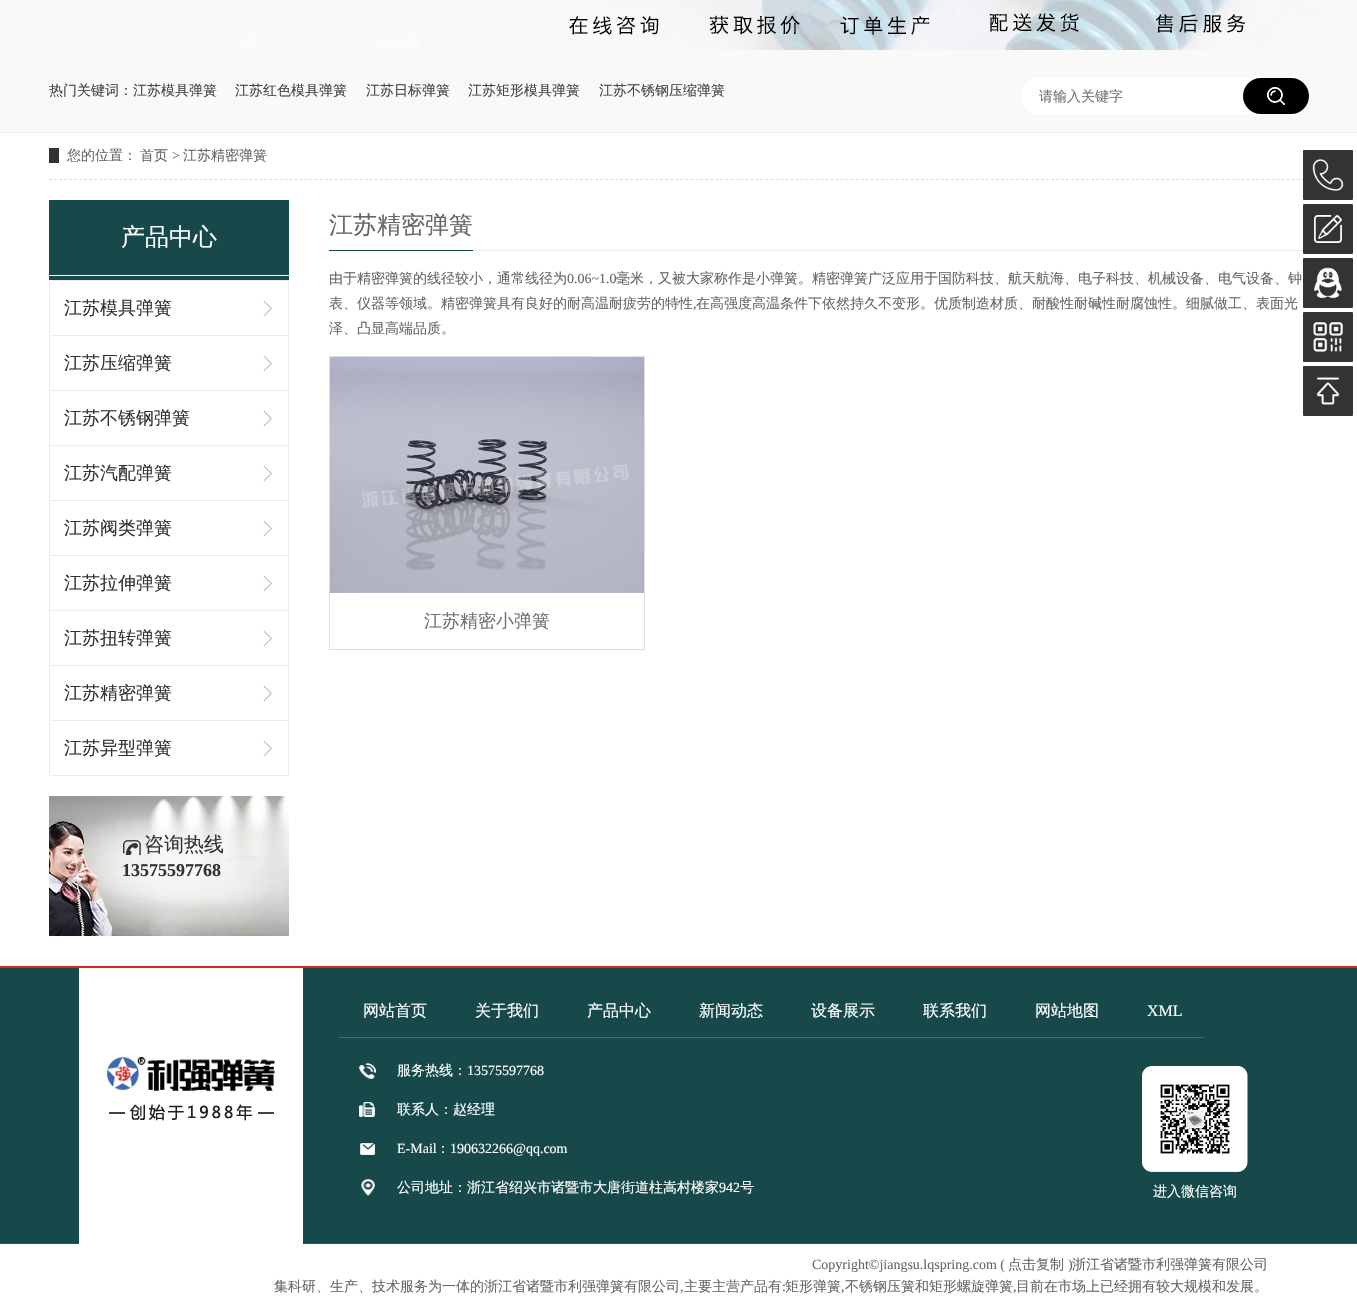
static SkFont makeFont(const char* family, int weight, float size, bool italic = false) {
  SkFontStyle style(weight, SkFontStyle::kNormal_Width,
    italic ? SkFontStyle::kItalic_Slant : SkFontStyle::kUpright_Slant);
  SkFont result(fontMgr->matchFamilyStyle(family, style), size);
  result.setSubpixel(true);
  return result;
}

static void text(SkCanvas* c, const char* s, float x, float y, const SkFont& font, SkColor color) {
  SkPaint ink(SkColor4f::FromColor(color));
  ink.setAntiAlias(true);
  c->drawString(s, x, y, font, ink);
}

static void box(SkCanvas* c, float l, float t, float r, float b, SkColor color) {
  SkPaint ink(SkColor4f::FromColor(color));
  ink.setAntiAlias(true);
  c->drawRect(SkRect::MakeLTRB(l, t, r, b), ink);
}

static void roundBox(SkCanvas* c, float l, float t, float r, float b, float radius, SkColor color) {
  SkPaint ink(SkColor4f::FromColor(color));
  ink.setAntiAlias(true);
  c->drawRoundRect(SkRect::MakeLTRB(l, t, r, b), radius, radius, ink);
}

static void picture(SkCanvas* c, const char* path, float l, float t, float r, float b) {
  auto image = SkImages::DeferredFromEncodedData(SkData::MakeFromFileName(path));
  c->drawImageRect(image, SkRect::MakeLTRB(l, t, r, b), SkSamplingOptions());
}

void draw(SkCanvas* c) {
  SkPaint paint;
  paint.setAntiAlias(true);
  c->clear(0xffffffff);
  picture(c, "img_01.png", 0, 0, 1357, 50);
  box(c, 0, 50, 1357, 132, 0xfff9f9f9);
  box(c, 0, 132, 1357, 133, 0xffeeeeee);
  SkFont face1 = makeFont("WenQuanYi Zen Hei", 500, 14);
  text(c, "热门关键词：江苏模具弹簧", 49, 95, face1, 0xff444444);
  text(c, "江苏红色模具弹簧", 235, 95, face1, 0xff444444);
  text(c, "江苏日标弹簧", 366, 95, face1, 0xff444444);
  text(c, "江苏矩形模具弹簧", 468, 95, face1, 0xff444444);
  text(c, "江苏不锈钢压缩弹簧", 599, 95, face1, 0xff444444);
  roundBox(c, 1021, 78, 1309, 114, 18, 0xffffffff);
  text(c, "请输入关键字", 1039, 101, face1, 0xff727272);
  roundBox(c, 1243, 78, 1309, 114, 18, 0xff000000);
  picture(c, "img_02.png", 1267, 87, 1285, 105);
  paint.setStyle(SkPaint::kStroke_Style);
  paint.setStrokeWidth(1);
  paint.setColor(0xffdcdcdc);
  paint.setPathEffect(SkDashPathEffect::Make({{3, 2.01f}}, 0));
  c->drawPath(SkPathBuilder().moveTo(49, 179.5f).lineTo(1309, 179.5f).detach(), paint);
  paint.setPathEffect(nullptr);
  text(c, "您的位置：", 67, 160, face1, 0xff666666);
  box(c, 49, 148, 59, 163, 0xff333333);
  text(c, "首页", 140, 160, face1, 0xff666666);
  SkFont face2 = makeFont("Liberation Serif", 400, 14);
  text(c, ">", 172, 160, face2, 0xff666666);
  text(c, "江苏精密弹簧", 183, 160, face1, 0xff666666);
  box(c, 49, 200, 289, 280, 0xff17494a);
  box(c, 49, 275, 289, 276, 0xffffffff);
  SkFont face3 = makeFont("WenQuanYi Zen Hei", 500, 24);
  text(c, "产品中心", 121, 245, face3, 0xffffffff);
  box(c, 49, 280, 289, 281, 0xffebebeb);
  box(c, 288, 280, 289, 776, 0xffebebeb);
  box(c, 49, 280, 50, 776, 0xffebebeb);
  box(c, 50, 335, 288, 336, 0xffebebeb);
  SkFont face4 = makeFont("WenQuanYi Zen Hei", 500, 18);
  text(c, "江苏模具弹簧", 64, 314, face4, 0xff333333);
  paint.setStyle(SkPaint::kFill_Style);
  paint.setColor(0xffbdbdbd);
  c->drawPath(SkPathBuilder().moveTo(264, 300.5f).lineTo(272, 308.5f).lineTo(271, 309).lineTo(263.5f, 301.5f).close().detach(), paint);
  c->drawPath(SkPathBuilder().moveTo(271, 308).lineTo(272, 308.5f).lineTo(264, 316.5f).lineTo(263.5f, 315.5f).close().detach(), paint);
  box(c, 50, 390, 288, 391, 0xffebebeb);
  text(c, "江苏压缩弹簧", 64, 369, face4, 0xff333333);
  c->drawPath(SkPathBuilder().moveTo(264, 355.5f).lineTo(272, 363.5f).lineTo(271, 364).lineTo(263.5f, 356.5f).close().detach(), paint);
  c->drawPath(SkPathBuilder().moveTo(271, 363).lineTo(272, 363.5f).lineTo(264, 371.5f).lineTo(263.5f, 370.5f).close().detach(), paint);
  box(c, 50, 445, 288, 446, 0xffebebeb);
  text(c, "江苏不锈钢弹簧", 64, 424, face4, 0xff333333);
  c->drawPath(SkPathBuilder().moveTo(264, 410.5f).lineTo(272, 418.5f).lineTo(271, 419).lineTo(263.5f, 411.5f).close().detach(), paint);
  c->drawPath(SkPathBuilder().moveTo(271, 418).lineTo(272, 418.5f).lineTo(264, 426.5f).lineTo(263.5f, 425.5f).close().detach(), paint);
  box(c, 50, 500, 288, 501, 0xffebebeb);
  text(c, "江苏汽配弹簧", 64, 479, face4, 0xff333333);
  c->drawPath(SkPathBuilder().moveTo(264, 465.5f).lineTo(272, 473.5f).lineTo(271, 474).lineTo(263.5f, 466.5f).close().detach(), paint);
  c->drawPath(SkPathBuilder().moveTo(271, 473).lineTo(272, 473.5f).lineTo(264, 481.5f).lineTo(263.5f, 480.5f).close().detach(), paint);
  box(c, 50, 555, 288, 556, 0xffebebeb);
  text(c, "江苏阀类弹簧", 64, 534, face4, 0xff333333);
  c->drawPath(SkPathBuilder().moveTo(264, 520.5f).lineTo(272, 528.5f).lineTo(271, 529).lineTo(263.5f, 521.5f).close().detach(), paint);
  c->drawPath(SkPathBuilder().moveTo(271, 528).lineTo(272, 528.5f).lineTo(264, 536.5f).lineTo(263.5f, 535.5f).close().detach(), paint);
  box(c, 50, 610, 288, 611, 0xffebebeb);
  text(c, "江苏拉伸弹簧", 64, 589, face4, 0xff333333);
  c->drawPath(SkPathBuilder().moveTo(264, 575.5f).lineTo(272, 583.5f).lineTo(271, 584).lineTo(263.5f, 576.5f).close().detach(), paint);
  c->drawPath(SkPathBuilder().moveTo(271, 583).lineTo(272, 583.5f).lineTo(264, 591.5f).lineTo(263.5f, 590.5f).close().detach(), paint);
  box(c, 50, 665, 288, 666, 0xffebebeb);
  text(c, "江苏扭转弹簧", 64, 644, face4, 0xff333333);
  c->drawPath(SkPathBuilder().moveTo(264, 630.5f).lineTo(272, 638.5f).lineTo(271, 639).lineTo(263.5f, 631.5f).close().detach(), paint);
  c->drawPath(SkPathBuilder().moveTo(271, 638).lineTo(272, 638.5f).lineTo(264, 646.5f).lineTo(263.5f, 645.5f).close().detach(), paint);
  box(c, 50, 720, 288, 721, 0xffebebeb);
  text(c, "江苏精密弹簧", 64, 699, face4, 0xff333333);
  c->drawPath(SkPathBuilder().moveTo(264, 685.5f).lineTo(272, 693.5f).lineTo(271, 694).lineTo(263.5f, 686.5f).close().detach(), paint);
  c->drawPath(SkPathBuilder().moveTo(271, 693).lineTo(272, 693.5f).lineTo(264, 701.5f).lineTo(263.5f, 700.5f).close().detach(), paint);
  box(c, 50, 775, 288, 776, 0xffebebeb);
  text(c, "江苏异型弹簧", 64, 754, face4, 0xff333333);
  c->drawPath(SkPathBuilder().moveTo(264, 740.5f).lineTo(272, 748.5f).lineTo(271, 749).lineTo(263.5f, 741.5f).close().detach(), paint);
  c->drawPath(SkPathBuilder().moveTo(271, 748).lineTo(272, 748.5f).lineTo(264, 756.5f).lineTo(263.5f, 755.5f).close().detach(), paint);
  picture(c, "img_03.png", 49, 796, 289, 936);
  picture(c, "img_04.png", 123, 840, 141, 855);
  SkFont face5 = makeFont("WenQuanYi Zen Hei", 500, 20);
  text(c, "咨询热线", 144, 851, face5, 0xff333333);
  SkFont face6 = makeFont("Liberation Serif", 700, 18);
  text(c, "13575597768", 122, 876, face6, 0xff333333);
  box(c, 473, 250, 1309, 251, 0xffebebeb);
  box(c, 329, 250, 473, 251, 0xff17494a);
  text(c, "江苏精密弹簧", 329, 233, face3, 0xff666666);
  text(c, "由于精密弹簧的线径较小，通常线径为", 329, 283, face1, 0xff666666);
  text(c, "0.06~1.0", 567, 283, face2, 0xff666666);
  text(c, "毫米，又被大家称作是小弹簧。精密弹簧广泛应用于国防科技、航天航海、电子科技、机械设备、电气设备、钟", 616, 283, face1, 0xff666666);
  text(c, "表、仪器等领域。精密弹簧具有良好的耐高温耐疲劳的特性", 329, 308, face1, 0xff666666);
  text(c, ",", 693, 308, face2, 0xff666666);
  text(c, "在高强度高温条件下依然持久不变形。优质制造材质、耐酸性耐碱性耐腐蚀性。细腻做工、表面光", 696, 308, face1, 0xff666666);
  text(c, "泽、凸显高端品质。", 329, 333, face1, 0xff666666);
  paint.setStyle(SkPaint::kStroke_Style);
  paint.setColor(0xffdedede);
  c->drawRect(SkRect::MakeLTRB(329.5f, 356.5f, 644.5f, 649.5f), paint);
  picture(c, "img_05.png", 330, 357, 644, 593);
  text(c, "江苏精密小弹簧", 424, 627, face4, 0xff727272);
  roundBox(c, 1303, 150, 1353, 200, 1, 0xff333333);
  picture(c, "img_06.png", 1312, 159, 1344, 191);
  roundBox(c, 1303, 204, 1353, 254, 1, 0xff333333);
  picture(c, "img_07.png", 1314, 215, 1342, 243);
  roundBox(c, 1303, 258, 1353, 308, 1, 0xff333333);
  picture(c, "img_08.png", 1314, 267, 1342, 299);
  roundBox(c, 1303, 312, 1353, 362, 1, 0xff333333);
  picture(c, "img_09.png", 1313, 322, 1343, 352);
  roundBox(c, 1303, 366, 1353, 416, 1, 0xff333333);
  picture(c, "img_10.png", 1316, 377, 1340, 405);
  picture(c, "img_11.png", 0, 966, 1357, 1244);
  box(c, 79, 968, 303, 1244, 0xffffffff);
  picture(c, "img_12.png", 107, 1057, 275, 1121);
  SkFont face7 = makeFont("WenQuanYi Zen Hei", 500, 16);
  text(c, "网站首页", 363, 1016, face7, 0xffffffff);
  text(c, "关于我们", 475, 1016, face7, 0xffffffff);
  text(c, "产品中心", 587, 1016, face7, 0xffffffff);
  text(c, "新闻动态", 699, 1016, face7, 0xffffffff);
  text(c, "设备展示", 811, 1016, face7, 0xffffffff);
  text(c, "联系我们", 923, 1016, face7, 0xffffffff);
  text(c, "网站地图", 1035, 1016, face7, 0xffffffff);
  SkFont face8 = makeFont("Liberation Serif", 400, 16);
  text(c, "XML", 1147, 1016, face8, 0xffffffff);
  box(c, 339, 1037, 1204, 1038, 0xff456d6e);
  picture(c, "img_13.png", 359, 1063, 376, 1079);
  text(c, "服务热线：", 397, 1075, face1, 0xffffffff);
  text(c, "13575597768", 467, 1075, face2, 0xffffffff);
  picture(c, "img_14.png", 359, 1102, 375, 1117);
  text(c, "联系人：赵经理", 397, 1114, face1, 0xffffffff);
  picture(c, "img_15.png", 360, 1143, 375, 1155);
  text(c, "E-Mail", 397, 1153, face2, 0xffffffff);
  text(c, "：", 436, 1153, face1, 0xffffffff);
  text(c, "190632266@qq.com", 450, 1153, face2, 0xffffffff);
  picture(c, "img_16.png", 361, 1179, 375, 1196);
  text(c, "公司地址：浙江省绍兴市诸暨市大唐街道柱嵩村楼家", 397, 1192, face1, 0xffffffff);
  text(c, "942", 719, 1192, face2, 0xffffffff);
  text(c, "号", 740, 1192, face1, 0xffffffff);
  picture(c, "img_17.png", 1142, 1066, 1248, 1172);
  picture(c, "img_18.png", 1160, 1084, 1230, 1154);
  text(c, "进入微信咨询", 1153, 1196, face1, 0xffffffff);
  text(c, "Copyright©jiangsu.lqspring.com (", 812, 1269, face2, 0xff666666);
  text(c, "点击复制", 1008, 1269, face1, 0xff666666);
  text(c, ")", 1068, 1269, face2, 0xff666666);
  text(c, "浙江省诸暨市利强弹簧有限公司", 1072, 1269, face1, 0xff666666);
  text(c, "集科研、生产、技术服务为一体的浙江省诸暨市利强弹簧有限公司", 274, 1291, face1, 0xff666666);
  text(c, ",", 680, 1291, face2, 0xff666666);
  text(c, "主要主营产品有", 684, 1291, face1, 0xff666666);
  text(c, ":", 782, 1291, face2, 0xff666666);
  text(c, "矩形弹簧", 785, 1291, face1, 0xff666666);
  text(c, ",", 841, 1291, face2, 0xff666666);
  text(c, "不锈钢压簧和矩形螺旋弹簧", 845, 1291, face1, 0xff666666);
  text(c, ",", 1013, 1291, face2, 0xff666666);
  text(c, "目前在市场上已经拥有较大规模和发展。", 1016, 1291, face1, 0xff666666);
}
